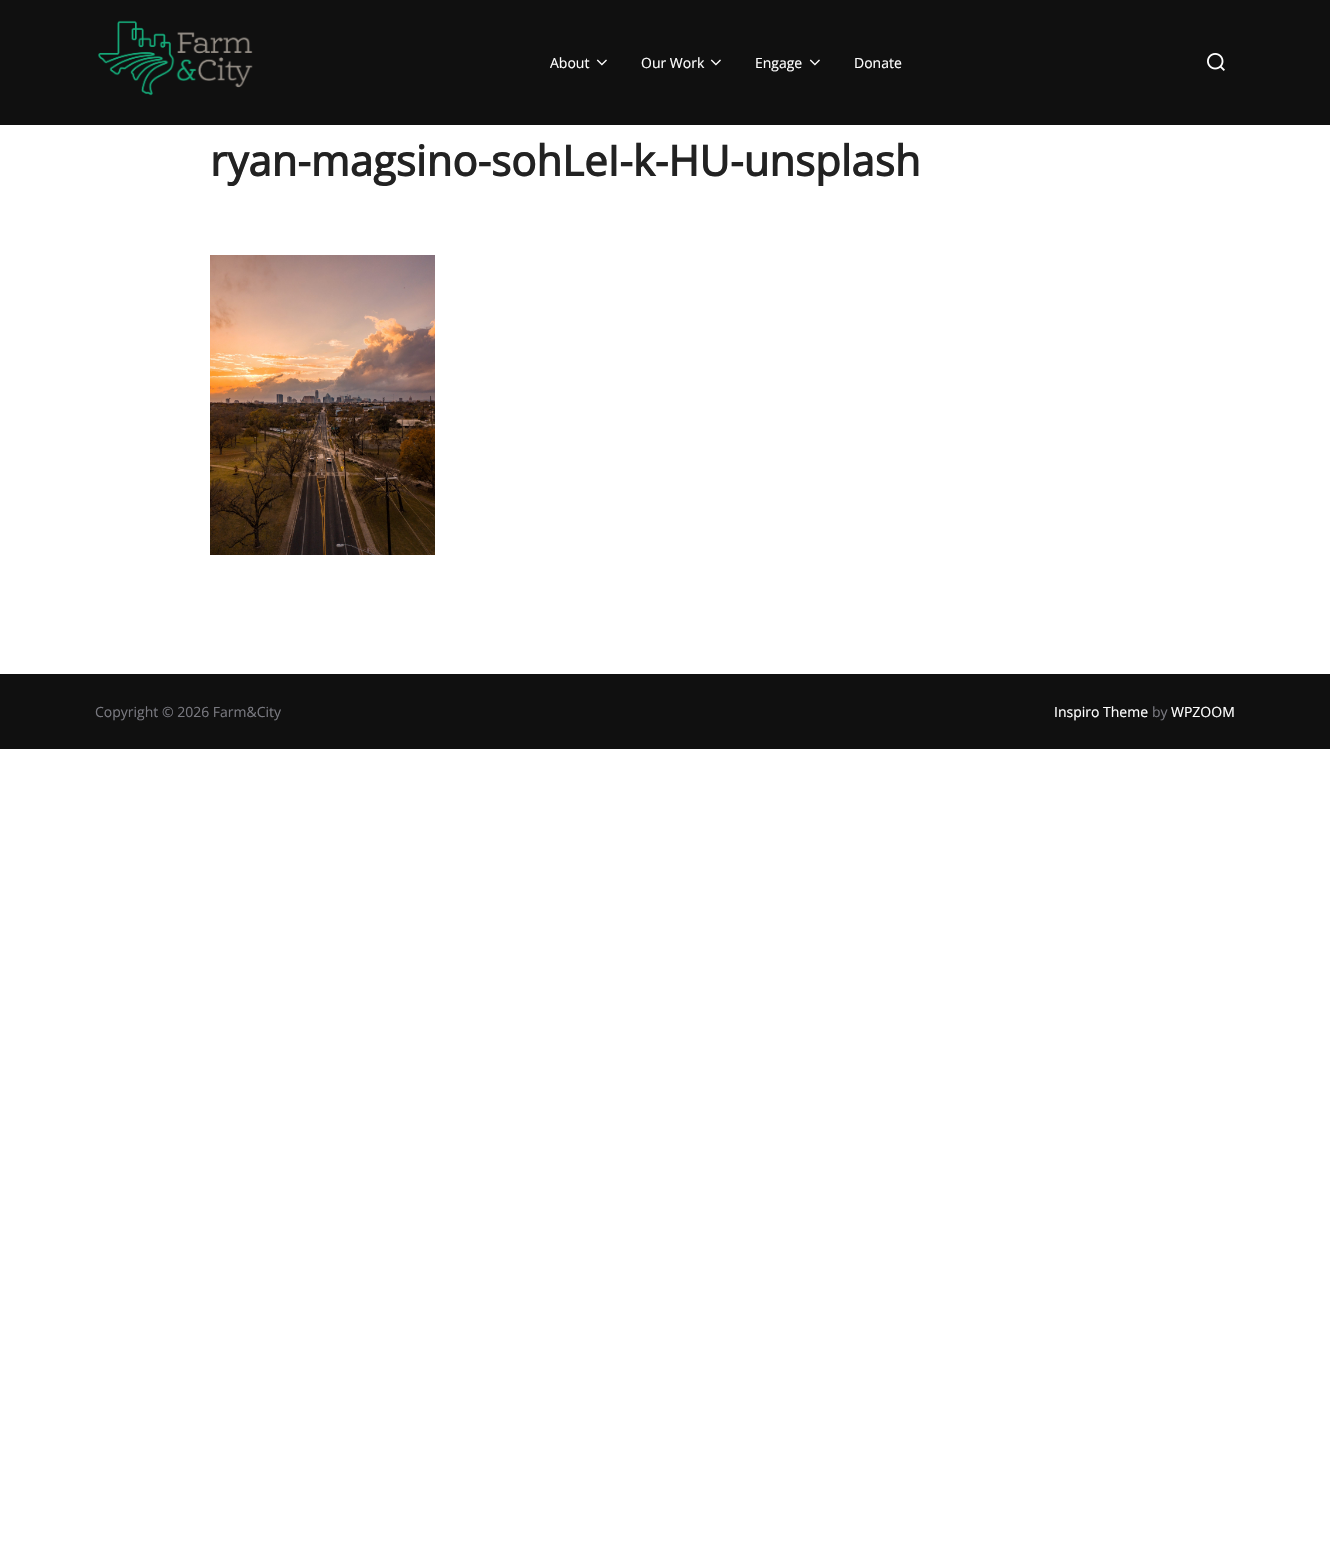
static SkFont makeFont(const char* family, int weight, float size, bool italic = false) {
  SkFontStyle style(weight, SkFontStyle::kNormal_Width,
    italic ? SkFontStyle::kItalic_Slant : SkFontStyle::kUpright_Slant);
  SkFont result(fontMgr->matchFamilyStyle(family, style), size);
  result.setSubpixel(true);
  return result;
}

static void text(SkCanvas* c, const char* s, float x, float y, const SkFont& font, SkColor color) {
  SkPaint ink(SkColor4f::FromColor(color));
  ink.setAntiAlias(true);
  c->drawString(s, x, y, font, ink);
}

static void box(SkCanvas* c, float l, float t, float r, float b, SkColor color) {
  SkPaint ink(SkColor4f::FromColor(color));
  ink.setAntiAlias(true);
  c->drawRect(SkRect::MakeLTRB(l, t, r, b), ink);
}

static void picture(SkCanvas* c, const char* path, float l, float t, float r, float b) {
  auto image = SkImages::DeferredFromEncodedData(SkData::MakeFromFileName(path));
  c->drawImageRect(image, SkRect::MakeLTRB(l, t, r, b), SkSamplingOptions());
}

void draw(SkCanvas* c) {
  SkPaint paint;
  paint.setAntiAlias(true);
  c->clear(0xffffffff);
  box(c, 0, 0, 1330, 125, 0xff101010);
  picture(c, "img_01.png", 98, 20, 253, 96);
  SkFont face1 = makeFont("Open Sans", 400, 14);
  text(c, "About", 550, 68, face1, 0xffffffff);
  picture(c, "img_02.png", 596, 59, 607, 66);
  text(c, "Our Work", 641, 68, face1, 0xffffffff);
  picture(c, "img_02.png", 710, 59, 721, 66);
  text(c, "Engage", 755, 68, face1, 0xffffffff);
  picture(c, "img_02.png", 809, 59, 820, 66);
  text(c, "Donate", 854, 68, face1, 0xffffffff);
  picture(c, "img_03.png", 1207, 53, 1225, 71);
  SkFont face2 = makeFont("Open Sans", 700, 42);
  text(c, "ryan-magsino-sohLeI-k-HU-unsplash", 210, 176, face2, 0xff222222);
  picture(c, "img_04.png", 210, 255, 435, 555);
  box(c, 0, 674, 1330, 749, 0xff101010);
  text(c, "Copyright © 2026 Farm&City", 95, 717, face1, 0xff78787f);
  text(c, "Inspiro Theme", 1054, 717, face1, 0xffffffff);
  text(c, "by", 1152, 717, face1, 0xff78787f);
  text(c, "WPZOOM", 1171, 717, face1, 0xffffffff);
}
